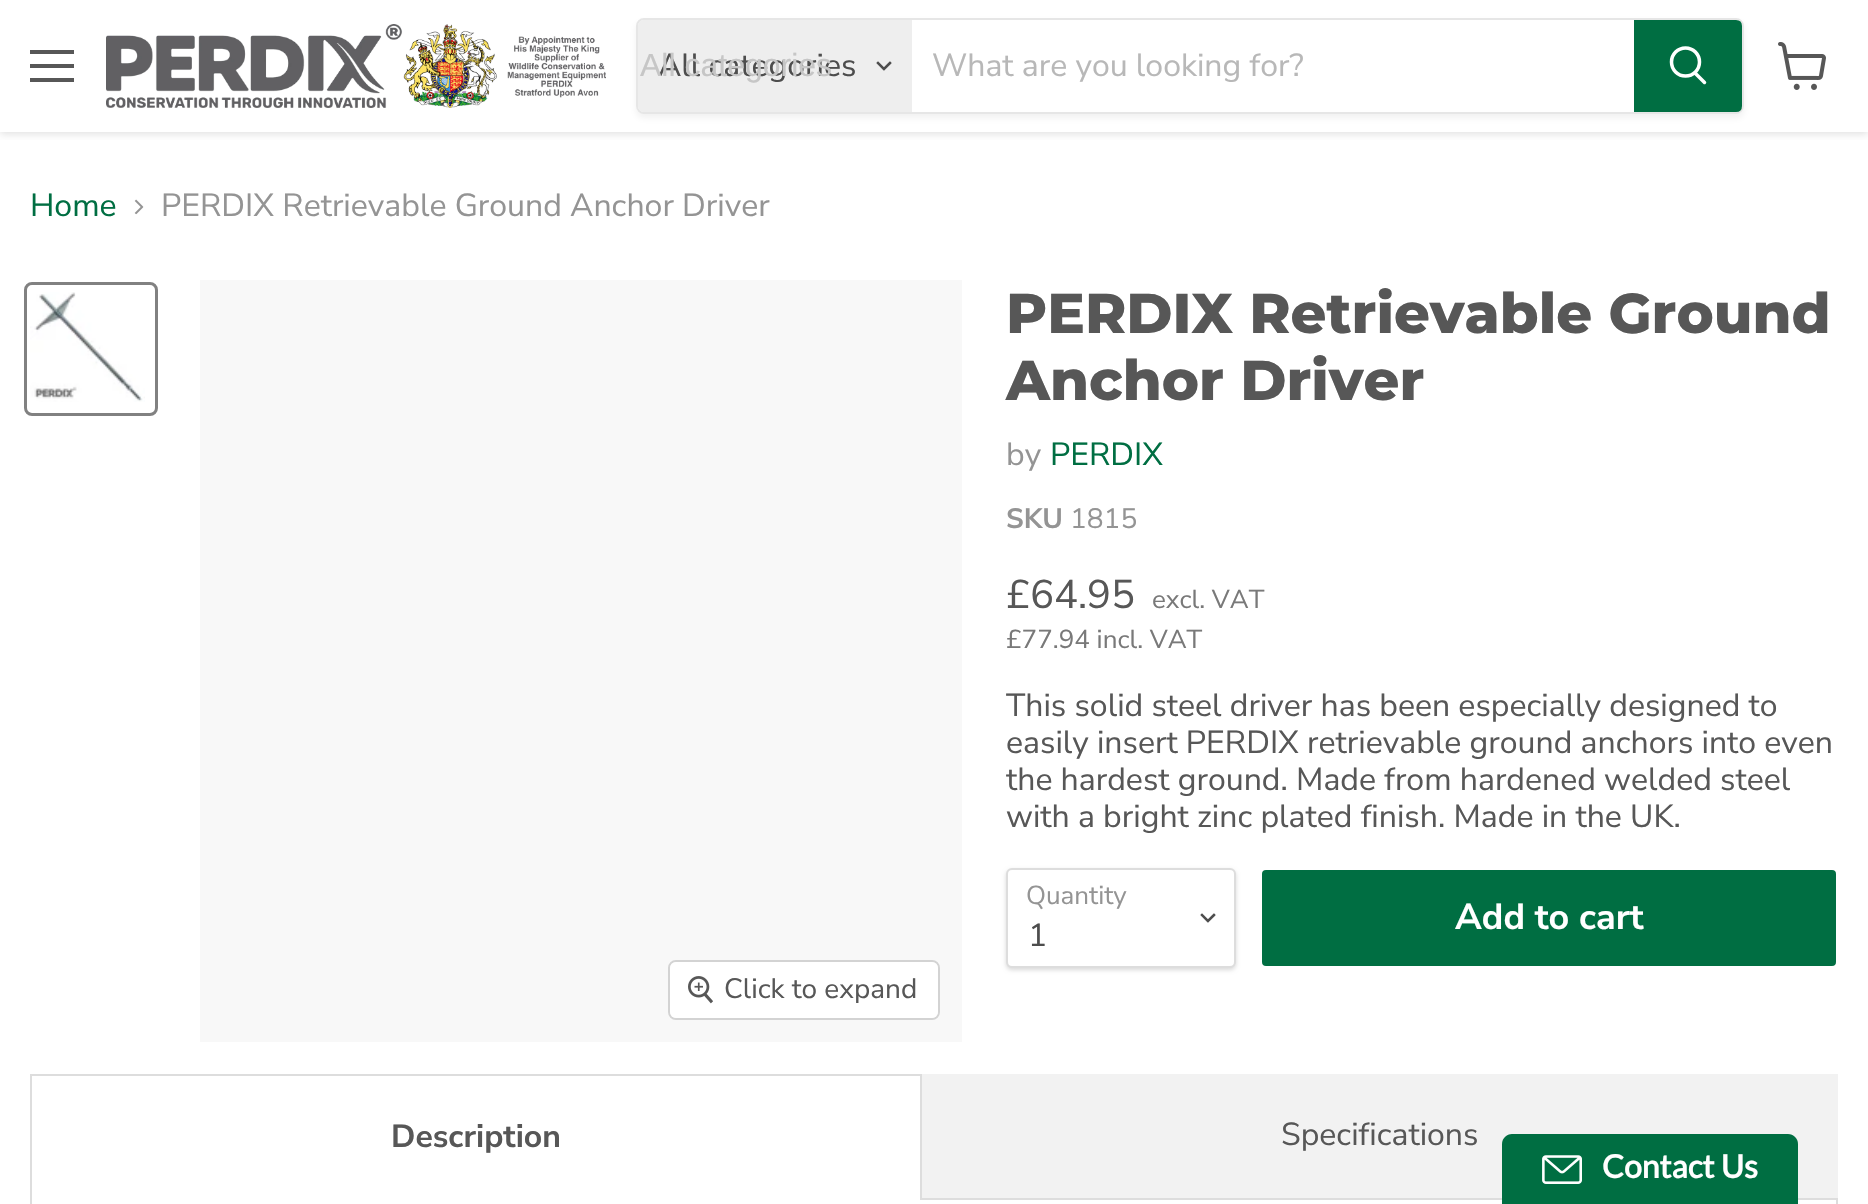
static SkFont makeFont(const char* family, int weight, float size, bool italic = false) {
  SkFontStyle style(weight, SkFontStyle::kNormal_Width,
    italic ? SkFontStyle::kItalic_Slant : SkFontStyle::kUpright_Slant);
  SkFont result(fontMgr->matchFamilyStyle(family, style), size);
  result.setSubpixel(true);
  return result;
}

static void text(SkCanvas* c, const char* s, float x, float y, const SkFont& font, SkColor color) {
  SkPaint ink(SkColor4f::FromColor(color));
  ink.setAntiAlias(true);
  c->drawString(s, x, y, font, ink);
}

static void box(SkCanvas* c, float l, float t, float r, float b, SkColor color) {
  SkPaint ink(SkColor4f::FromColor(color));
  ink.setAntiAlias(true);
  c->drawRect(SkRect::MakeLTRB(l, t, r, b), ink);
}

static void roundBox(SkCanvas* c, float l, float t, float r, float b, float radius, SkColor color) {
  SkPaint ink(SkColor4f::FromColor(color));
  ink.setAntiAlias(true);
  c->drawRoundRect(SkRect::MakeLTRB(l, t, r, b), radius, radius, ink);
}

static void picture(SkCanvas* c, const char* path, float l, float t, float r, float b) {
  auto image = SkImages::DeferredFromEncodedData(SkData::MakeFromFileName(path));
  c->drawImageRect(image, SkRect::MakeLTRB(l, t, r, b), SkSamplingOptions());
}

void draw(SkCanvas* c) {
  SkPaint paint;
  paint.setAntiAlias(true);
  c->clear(0xffffffff);
  c->save();
  c->clipRect(SkRect::MakeLTRB(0, 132, 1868, 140));
  paint.setColor(0x40808080);
  paint.setMaskFilter(SkMaskFilter::MakeBlur(kNormal_SkBlurStyle, 4));
  c->drawRect(SkRect::MakeLTRB(0, 2, 1868, 134), paint);
  paint.setMaskFilter(nullptr);
  c->restore();
  box(c, 30, 50, 74, 54, 0xff575757);
  box(c, 30, 64, 74, 68, 0xff575757);
  box(c, 30, 78, 74, 82, 0xff575757);
  picture(c, "img_01.png", 106, 24, 606, 108);
  c->save();
  c->clipPath(SkPathBuilder(SkPathFillType::kEvenOdd).moveTo(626, 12).lineTo(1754, 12).lineTo(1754, 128).lineTo(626, 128).close().moveTo(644, 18).lineTo(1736, 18).cubicTo(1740.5f, 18, 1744, 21.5f, 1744, 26).lineTo(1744, 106).cubicTo(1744, 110.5f, 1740.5f, 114, 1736, 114).lineTo(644, 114).cubicTo(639.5f, 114, 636, 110.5f, 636, 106).lineTo(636, 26).cubicTo(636, 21.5f, 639.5f, 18, 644, 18).close().detach(), true);
  paint.setColor(0x1c808080);
  paint.setMaskFilter(SkMaskFilter::MakeBlur(kNormal_SkBlurStyle, 3));
  c->drawRoundRect(SkRect::MakeLTRB(636, 22, 1744, 118), 8, 8, paint);
  paint.setMaskFilter(nullptr);
  c->restore();
  paint.setStyle(SkPaint::kStroke_Style);
  paint.setStrokeWidth(2);
  paint.setColor(0x33808080);
  c->drawRoundRect(SkRect::MakeLTRB(637, 19, 1743, 113), 7, 7, paint);
  paint.setStyle(SkPaint::kFill_Style);
  paint.setColor(0xffeeeeee);
  c->drawPath(SkPathBuilder().moveTo(644, 20).lineTo(912, 20).lineTo(912, 112).lineTo(644, 112).cubicTo(640.5f, 112, 638, 109.5f, 638, 106).lineTo(638, 26).cubicTo(638, 22.5f, 640.5f, 20, 644, 20).close().detach(), paint);
  SkFont face1 = makeFont("Nunito Sans", 200, 32);
  text(c, "All categories", 658, 76, face1, 0xff4d4d4d);
  SkFont face2 = makeFont("Liberation Sans", 400, 32);
  text(c, "All categories", 640, 76, face2, 0xffc6c6c6);
  paint.setStyle(SkPaint::kStroke_Style);
  paint.setStrokeWidth(2.5f);
  paint.setStrokeCap(SkPaint::kSquare_Cap);
  paint.setColor(0xff4d4d4d);
  c->drawPath(SkPathBuilder().moveTo(884, 69).lineTo(890, 63).moveTo(884, 69).lineTo(878, 63).detach(), paint);
  text(c, "What are you looking for?", 932, 76, face1, 0xffb8b8b8);
  paint.setStyle(SkPaint::kFill_Style);
  paint.setColor(0xff006e42);
  c->drawPath(SkPathBuilder().moveTo(1635, 21).lineTo(1736, 21).cubicTo(1739, 21, 1741, 23, 1741, 26).lineTo(1741, 106).cubicTo(1741, 109, 1739, 111, 1736, 111).lineTo(1635, 111).close().detach(), paint);
  paint.setStyle(SkPaint::kStroke_Style);
  paint.setStrokeWidth(2);
  paint.setStrokeCap(SkPaint::kButt_Cap);
  c->drawPath(SkPathBuilder().moveTo(1635, 21).lineTo(1736, 21).cubicTo(1739, 21, 1741, 23, 1741, 26).lineTo(1741, 106).cubicTo(1741, 109, 1739, 111, 1736, 111).lineTo(1635, 111).close().detach(), paint);
  paint.setStrokeWidth(3.5f);
  paint.setStrokeCap(SkPaint::kRound_Cap);
  paint.setColor(0xffffffff);
  c->drawPath(SkPathBuilder().moveTo(1704.5f, 82.5f).lineTo(1695, 73).detach(), paint);
  paint.setStrokeCap(SkPaint::kButt_Cap);
  c->drawCircle(1685.5f, 62, 14, paint);
  picture(c, "img_02.png", 1778, 42, 1826, 90);
  text(c, "Home", 30, 216, face1, 0xff006e42);
  picture(c, "img_03.png", 134, 199, 144, 215);
  text(c, "PERDIX Retrievable Ground Anchor Driver", 161, 216, face1, 0xff949494);
  SkFont face3 = makeFont("Montserrat", 800, 56);
  text(c, "PERDIX Retrievable Ground", 1006, 333, face3, 0xff575757);
  text(c, "Anchor Driver", 1006, 400, face3, 0xff575757);
  text(c, "by", 1006, 465, face1, 0xff949494);
  text(c, "PERDIX", 1050, 465, face1, 0xff006e42);
  SkFont face4 = makeFont("Nunito Sans", 700, 28);
  text(c, "SKU", 1006, 528, face4, 0xff949494);
  SkFont face5 = makeFont("Nunito Sans", 200, 28);
  text(c, "1815", 1070, 528, face5, 0xff949494);
  SkFont face6 = makeFont("Nunito Sans", 200, 40);
  text(c, "£64.95", 1006, 608, face6, 0xff575757);
  SkFont face7 = makeFont("Nunito Sans", 200, 26);
  text(c, "excl. VAT", 1152, 608, face7, 0xff797979);
  text(c, "£77.94 incl. VAT", 1006, 648, face7, 0xff797979);
  text(c, "This solid steel driver has been especially designed to", 1006, 716, face1, 0xff575757);
  text(c, "easily insert PERDIX retrievable ground anchors into even", 1006, 753, face1, 0xff575757);
  text(c, "the hardest ground. Made from hardened welded steel", 1006, 790, face1, 0xff575757);
  text(c, "with a bright zinc plated finish. Made in the UK.", 1006, 827, face1, 0xff575757);
  paint.setStyle(SkPaint::kFill_Style);
  paint.setColor(0x26000000);
  paint.setMaskFilter(SkMaskFilter::MakeBlur(kNormal_SkBlurStyle, 2));
  c->drawRoundRect(SkRect::MakeLTRB(1006, 870, 1236, 970), 6, 6, paint);
  paint.setMaskFilter(nullptr);
  paint.setColor(0xffffffff);
  c->drawRoundRect(SkRect::MakeLTRB(1007, 869, 1235, 967), 5, 5, paint);
  paint.setStyle(SkPaint::kStroke_Style);
  paint.setStrokeWidth(2);
  paint.setColor(0xffdddddd);
  c->drawRoundRect(SkRect::MakeLTRB(1007, 869, 1235, 967), 5, 5, paint);
  text(c, "Quantity", 1026, 904, face7, 0xff949494);
  paint.setStrokeWidth(2.5f);
  paint.setStrokeCap(SkPaint::kSquare_Cap);
  paint.setColor(0xff4d4d4d);
  c->drawPath(SkPathBuilder().moveTo(1208, 921).lineTo(1214, 915).moveTo(1208, 921).lineTo(1202, 915).detach(), paint);
  text(c, "1", 1028, 946, face1, 0xff4d4d4d);
  paint.setStyle(SkPaint::kFill_Style);
  paint.setColor(0xff006e42);
  c->drawRoundRect(SkRect::MakeLTRB(1261, 869, 1837, 967), 5, 5, paint);
  paint.setStyle(SkPaint::kStroke_Style);
  paint.setStrokeWidth(2);
  paint.setStrokeCap(SkPaint::kButt_Cap);
  paint.setColor(0xffffffff);
  c->drawRoundRect(SkRect::MakeLTRB(1261, 869, 1837, 967), 5, 5, paint);
  SkFont face8 = makeFont("Nunito Sans", 700, 36);
  text(c, "Add to cart", 1455, 929, face8, 0xffffffff);
  paint.setStrokeWidth(3);
  paint.setColor(0xff818181);
  c->drawRoundRect(SkRect::MakeLTRB(25.5f, 283.5f, 156.5f, 414.5f), 6.5f, 6.5f, paint);
  picture(c, "img_04.png", 30, 292, 145, 402);
  box(c, 200, 280, 962, 1042, 0xfff8f8f8);
  paint.setStrokeWidth(2);
  paint.setColor(0xffd3d3d3);
  c->drawRoundRect(SkRect::MakeLTRB(669, 961, 939, 1019), 7, 7, paint);
  roundBox(c, 670, 962, 938, 1018, 6, 0xe6ffffff);
  picture(c, "img_05.png", 688, 976, 713, 1004);
  text(c, "Click to expand", 724, 998, face5, 0xff575757);
  box(c, 30, 1074, 922, 1076, 0xffdddddd);
  box(c, 920, 1074, 922, 1200, 0xffdddddd);
  box(c, 30, 1074, 32, 1204, 0xffdddddd);
  SkFont face9 = makeFont("Nunito Sans", 700, 32);
  text(c, "Description", 391, 1147, face9, 0xff575757);
  box(c, 922, 1074, 1838, 1198, 0xfff2f2f2);
  box(c, 922, 1198, 1838, 1200, 0xffdddddd);
  text(c, "Specifications", 1281, 1145, face1, 0xff575757);
  box(c, 1836, 1200, 1838, 1204, 0xffdddddd);
  paint.setStyle(SkPaint::kFill_Style);
  paint.setColor(0xff006e42);
  c->drawPath(SkPathBuilder().moveTo(1512, 1134).lineTo(1788, 1134).cubicTo(1793.5f, 1134, 1798, 1138.5f, 1798, 1144).lineTo(1798, 1204).lineTo(1502, 1204).lineTo(1502, 1144).cubicTo(1502, 1138.5f, 1506.5f, 1134, 1512, 1134).close().detach(), paint);
  picture(c, "img_06.png", 1542, 1155, 1582, 1184);
  SkFont face10 = makeFont("Lato", 700, 32);
  text(c, "Contact Us", 1602, 1178, face10, 0xffffffff);
}
